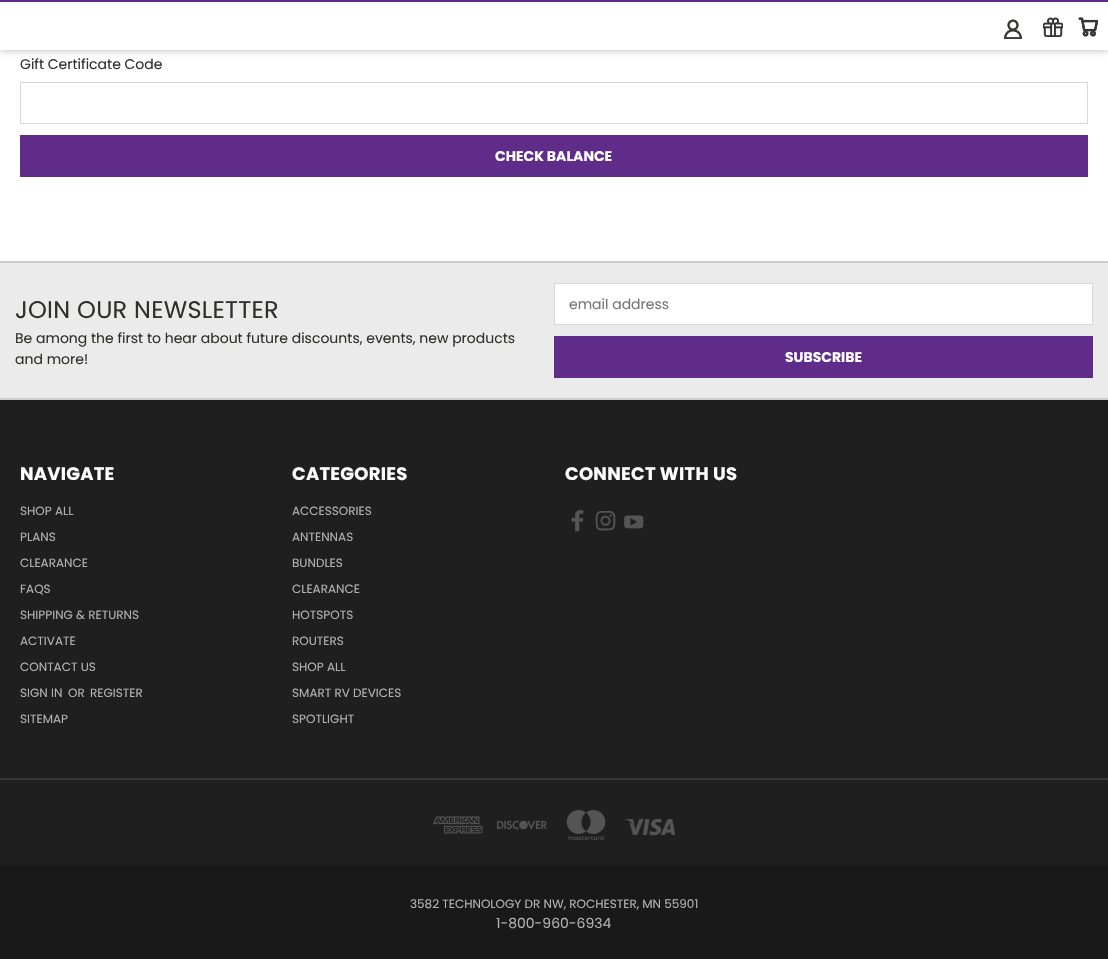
static SkFont makeFont(const char* family, int weight, float size, bool italic = false) {
  SkFontStyle style(weight, SkFontStyle::kNormal_Width,
    italic ? SkFontStyle::kItalic_Slant : SkFontStyle::kUpright_Slant);
  SkFont result(fontMgr->matchFamilyStyle(family, style), size);
  result.setSubpixel(true);
  return result;
}

static void text(SkCanvas* c, const char* s, float x, float y, const SkFont& font, SkColor color) {
  SkPaint ink(SkColor4f::FromColor(color));
  ink.setAntiAlias(true);
  c->drawString(s, x, y, font, ink);
}

static void spacedText(SkCanvas* c, const char* s, float x, float y, const SkFont& font, const SkPaint& ink, float letter, float word) {
  std::vector<SkGlyphID> glyphs(font.countText(s, strlen(s), SkTextEncoding::kUTF8));
  std::vector<float> xs(glyphs.size());
  font.textToGlyphs(s, strlen(s), SkTextEncoding::kUTF8, glyphs);
  font.getXPos(glyphs, xs, x);
  float extra = 0;
  for (size_t i = 0; i < glyphs.size(); i++) {
    xs[i] += extra;
    extra += letter + word * (glyphs[i] == font.unicharToGlyph(' '));
  }
  c->drawTextBlob(SkTextBlob::MakeFromPosHGlyphs(glyphs, xs, y, font), 0, 0, ink);
}

static void box(SkCanvas* c, float l, float t, float r, float b, SkColor color) {
  SkPaint ink(SkColor4f::FromColor(color));
  ink.setAntiAlias(true);
  c->drawRect(SkRect::MakeLTRB(l, t, r, b), ink);
}

static void picture(SkCanvas* c, const char* path, float l, float t, float r, float b) {
  auto image = SkImages::DeferredFromEncodedData(SkData::MakeFromFileName(path));
  c->drawImageRect(image, SkRect::MakeLTRB(l, t, r, b), SkSamplingOptions());
}

void draw(SkCanvas* c) {
  SkPaint paint;
  paint.setAntiAlias(true);
  c->clear(0xffffffff);
  paint.setColor(0x4d000000);
  paint.setMaskFilter(SkMaskFilter::MakeBlur(kNormal_SkBlurStyle, 3.5f));
  c->drawRect(SkRect::MakeLTRB(0, 0, 1108, 50), paint);
  paint.setMaskFilter(nullptr);
  box(c, 0, 2, 1108, 50, 0xffffffff);
  box(c, 0, 0, 1108, 2, 0xff5f2d89);
  picture(c, "img_01.png", 1004, 19, 1022, 39);
  picture(c, "img_02.png", 1043, 17, 1063, 37);
  picture(c, "img_03.png", 1078, 17, 1098, 37);
  SkFont face1 = makeFont("Poppins", 400, 14);
  text(c, "Gift Certificate Code", 20, 69, face1, 0xff2f2f2b);
  paint.setStyle(SkPaint::kStroke_Style);
  paint.setStrokeWidth(1);
  paint.setColor(0xffd7d7d7);
  c->drawRect(SkRect::MakeLTRB(20.5f, 82.5f, 1087.5f, 123.5f), paint);
  box(c, 20, 135, 1088, 177, 0xff5f2d89);
  SkFont face2 = makeFont("Poppins", 700, 14);
  text(c, "CHECK BALANCE", 495, 161, face2, 0xffffffff);
  box(c, 0, 263, 1108, 398, 0xffebebeb);
  box(c, 0, 261, 1108, 263, 0xffcdcccc);
  SkFont face3 = makeFont("Poppins", 400, 24);
  paint.setStyle(SkPaint::kFill_Style);
  paint.setColor(0xff2f2f2b);
  spacedText(c, "JOIN OUR NEWSLETTER", 15, 318, face3, paint, 0.25f, 0);
  text(c, "Be among the first to hear about future discounts, events, new products", 15, 343, face1, 0xff2f2f2b);
  text(c, "and more!", 15, 364, face1, 0xff2f2f2b);
  paint.setColor(0xffffffff);
  c->drawRect(SkRect::MakeLTRB(554.5f, 283.5f, 1092.5f, 324.5f), paint);
  paint.setStyle(SkPaint::kStroke_Style);
  paint.setColor(0xffd7d7d7);
  c->drawRect(SkRect::MakeLTRB(554.5f, 283.5f, 1092.5f, 324.5f), paint);
  text(c, "email address", 569, 309, face1, 0xff757575);
  box(c, 554, 336, 1093, 378, 0xff5f2d89);
  text(c, "SUBSCRIBE", 785, 362, face2, 0xffffffff);
  box(c, 0, 400, 1108, 865, 0xff1f1f1f);
  box(c, 0, 398, 1108, 400, 0xffcdcccc);
  SkFont face4 = makeFont("Poppins", 700, 18);
  paint.setStyle(SkPaint::kFill_Style);
  paint.setColor(0xffffffff);
  spacedText(c, "NAVIGATE", 20, 480, face4, paint, 0.25f, 0);
  SkFont face5 = makeFont("Poppins", 400, 12);
  text(c, "SHOP ALL", 20, 515, face5, 0xffb2b2b2);
  text(c, "PLANS", 20, 541, face5, 0xffb2b2b2);
  text(c, "CLEARANCE", 20, 567, face5, 0xffb2b2b2);
  text(c, "FAQS", 20, 593, face5, 0xffb2b2b2);
  text(c, "SHIPPING & RETURNS", 20, 619, face5, 0xffb2b2b2);
  text(c, "ACTIVATE", 20, 645, face5, 0xffb2b2b2);
  text(c, "CONTACT US", 20, 671, face5, 0xffb2b2b2);
  text(c, "SIGN IN", 20, 697, face5, 0xffb2b2b2);
  text(c, "OR", 68, 697, face5, 0xffb2b2b2);
  text(c, "REGISTER", 90, 697, face5, 0xffb2b2b2);
  text(c, "SITEMAP", 20, 723, face5, 0xffb2b2b2);
  spacedText(c, "CATEGORIES", 292, 480, face4, paint, 0.25f, 0);
  text(c, "ACCESSORIES", 292, 515, face5, 0xffb2b2b2);
  text(c, "ANTENNAS", 292, 541, face5, 0xffb2b2b2);
  text(c, "BUNDLES", 292, 567, face5, 0xffb2b2b2);
  text(c, "CLEARANCE", 292, 593, face5, 0xffb2b2b2);
  text(c, "HOTSPOTS", 292, 619, face5, 0xffb2b2b2);
  text(c, "ROUTERS", 292, 645, face5, 0xffb2b2b2);
  text(c, "SHOP ALL", 292, 671, face5, 0xffb2b2b2);
  text(c, "SMART RV DEVICES", 292, 697, face5, 0xffb2b2b2);
  text(c, "SPOTLIGHT", 292, 723, face5, 0xffb2b2b2);
  spacedText(c, "CONNECT WITH US", 565, 480, face4, paint, 0.25f, 0);
  picture(c, "img_04.png", 571, 510, 584, 532);
  picture(c, "img_05.png", 595, 510, 616, 531);
  picture(c, "img_06.png", 624, 515, 644, 529);
  box(c, 0, 778, 1108, 780, 0xff363636);
  picture(c, "img_07.png", 433, 816, 483, 834);
  picture(c, "img_08.png", 497, 820, 547, 830);
  picture(c, "img_09.png", 566, 810, 606, 840);
  picture(c, "img_10.png", 625, 818, 675, 836);
  box(c, 0, 865, 1108, 959, 0xff191919);
  text(c, "3582 TECHNOLOGY DR NW, ROCHESTER, MN 55901", 410, 908, face5, 0xffb2b2b2);
  text(c, "1-800-960-6934", 496, 928, face1, 0xffb2b2b2);
}
